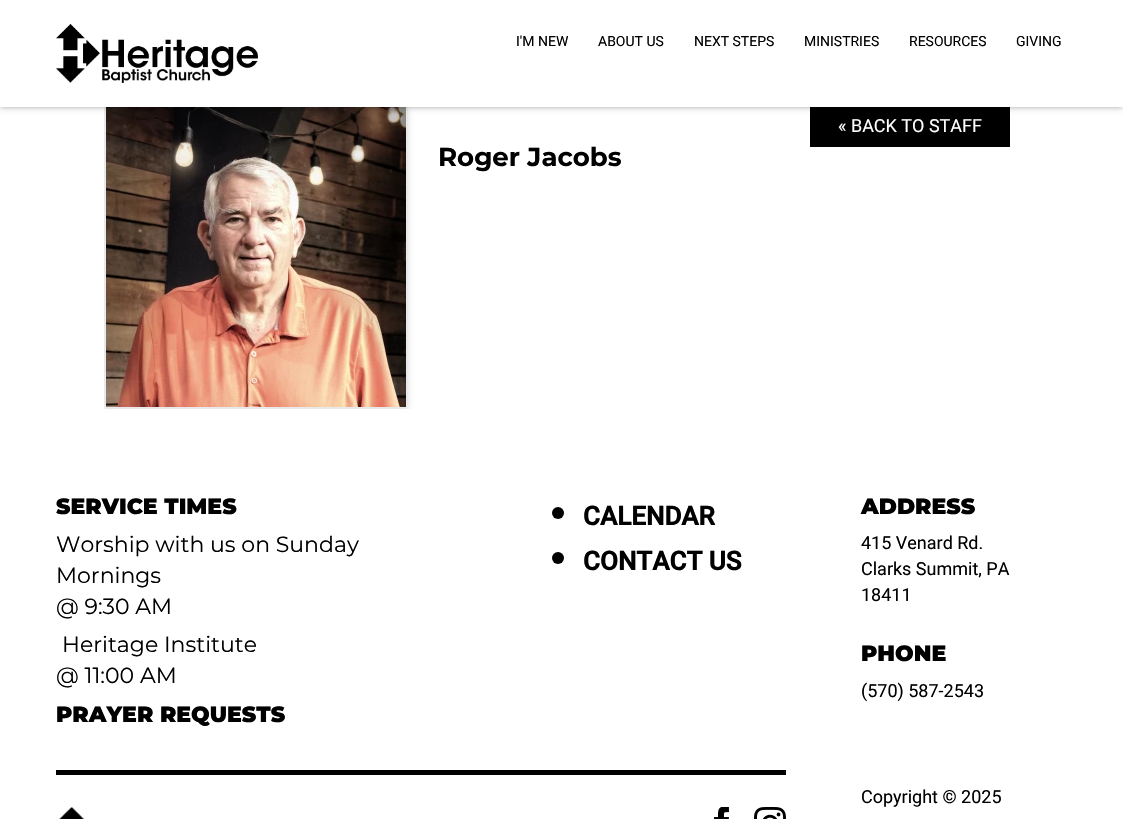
static SkFont makeFont(const char* family, int weight, float size, bool italic = false) {
  SkFontStyle style(weight, SkFontStyle::kNormal_Width,
    italic ? SkFontStyle::kItalic_Slant : SkFontStyle::kUpright_Slant);
  SkFont result(fontMgr->matchFamilyStyle(family, style), size);
  result.setSubpixel(true);
  return result;
}

static void text(SkCanvas* c, const char* s, float x, float y, const SkFont& font, SkColor color) {
  SkPaint ink(SkColor4f::FromColor(color));
  ink.setAntiAlias(true);
  c->drawString(s, x, y, font, ink);
}

static void box(SkCanvas* c, float l, float t, float r, float b, SkColor color) {
  SkPaint ink(SkColor4f::FromColor(color));
  ink.setAntiAlias(true);
  c->drawRect(SkRect::MakeLTRB(l, t, r, b), ink);
}

static void picture(SkCanvas* c, const char* path, float l, float t, float r, float b) {
  auto image = SkImages::DeferredFromEncodedData(SkData::MakeFromFileName(path));
  c->drawImageRect(image, SkRect::MakeLTRB(l, t, r, b), SkSamplingOptions());
}

void draw(SkCanvas* c) {
  SkPaint paint;
  paint.setAntiAlias(true);
  c->clear(0xffffffff);
  c->save();
  c->clipRect(SkRect::MakeLTRB(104, 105, 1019, 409));
  paint.setColor(0x1a000000);
  paint.setMaskFilter(SkMaskFilter::MakeBlur(kNormal_SkBlurStyle, 2.5f));
  c->drawRoundRect(SkRect::MakeLTRB(103, 106, 409, 412), 7, 7, paint);
  paint.setMaskFilter(nullptr);
  c->restore();
  paint.setStyle(SkPaint::kStroke_Style);
  paint.setStrokeWidth(2);
  paint.setColor(0xffe9e9e9);
  c->drawRoundRect(SkRect::MakeLTRB(105, 106, 407, 408), 5, 5, paint);
  picture(c, "img_02.png", 106, 107, 406, 407);
  box(c, 810, 107, 1010, 147, 0xff000000);
  paint.setStyle(SkPaint::kFill_Style);
  paint.setColor(0x59000000);
  paint.setMaskFilter(SkMaskFilter::MakeBlur(kNormal_SkBlurStyle, 3));
  c->drawRect(SkRect::MakeLTRB(0, 0, 1123, 107), paint);
  paint.setMaskFilter(nullptr);
  box(c, 0, 0, 1123, 107, 0xffffffff);
  picture(c, "img_01.png", 56, 24, 258, 83);
  SkFont face1 = makeFont("Roboto", 400, 14);
  text(c, "I'M NEW", 516, 46, face1, 0xff000000);
  text(c, "ABOUT US", 598, 46, face1, 0xff000000);
  text(c, "NEXT STEPS", 694, 46, face1, 0xff000000);
  text(c, "MINISTRIES", 804, 46, face1, 0xff000000);
  text(c, "RESOURCES", 909, 46, face1, 0xff000000);
  text(c, "GIVING", 1016, 46, face1, 0xff000000);
  SkFont face2 = makeFont("Roboto", 400, 18);
  text(c, "« BACK TO STAFF", 838, 132, face2, 0xffffffff);
  SkFont face3 = makeFont("Montserrat", 700, 26);
  text(c, "Roger Jacobs", 438, 166, face3, 0xff000000);
  box(c, 56, 770, 786, 775, 0xff000000);
  SkFont face4 = makeFont("Montserrat", 900, 22);
  text(c, "SERVICE TIMES", 56, 514, face4, 0xff000000);
  SkFont face5 = makeFont("Montserrat", 100, 22);
  text(c, "Worship with us on Sunday", 56, 552, face5, 0xff000000);
  text(c, "Mornings", 56, 583, face5, 0xff000000);
  text(c, "@ 9:30 AM", 56, 614, face5, 0xff000000);
  text(c, "Heritage Institute", 62, 652, face5, 0xff000000);
  text(c, "@ 11:00 AM", 56, 683, face5, 0xff000000);
  text(c, "PRAYER REQUESTS", 56, 722, face4, 0xff000000);
  paint.setColor(0xff000000);
  c->drawCircle(558, 513, 6, paint);
  SkFont face6 = makeFont("Roboto", 700, 26);
  text(c, "CALENDAR", 583, 525, face6, 0xff000000);
  c->drawCircle(558, 558, 6, paint);
  text(c, "CONTACT US", 583, 570, face6, 0xff000000);
  picture(c, "img_03.png", 59, 807, 85, 819);
  picture(c, "img_04.png", 714, 807, 729, 819);
  picture(c, "img_05.png", 754, 807, 786, 819);
  text(c, "ADDRESS", 861, 514, face4, 0xff000000);
  text(c, "415 Venard Rd.", 861, 549, face2, 0xff000000);
  text(c, "Clarks Summit, PA", 861, 575, face2, 0xff000000);
  text(c, "18411", 861, 601, face2, 0xff000000);
  text(c, "PHONE", 861, 661, face4, 0xff000000);
  text(c, "(570) 587-2543", 861, 697, face2, 0xff000000);
  text(c, "Copyright © 2025", 861, 803, face2, 0xff000000);
}
